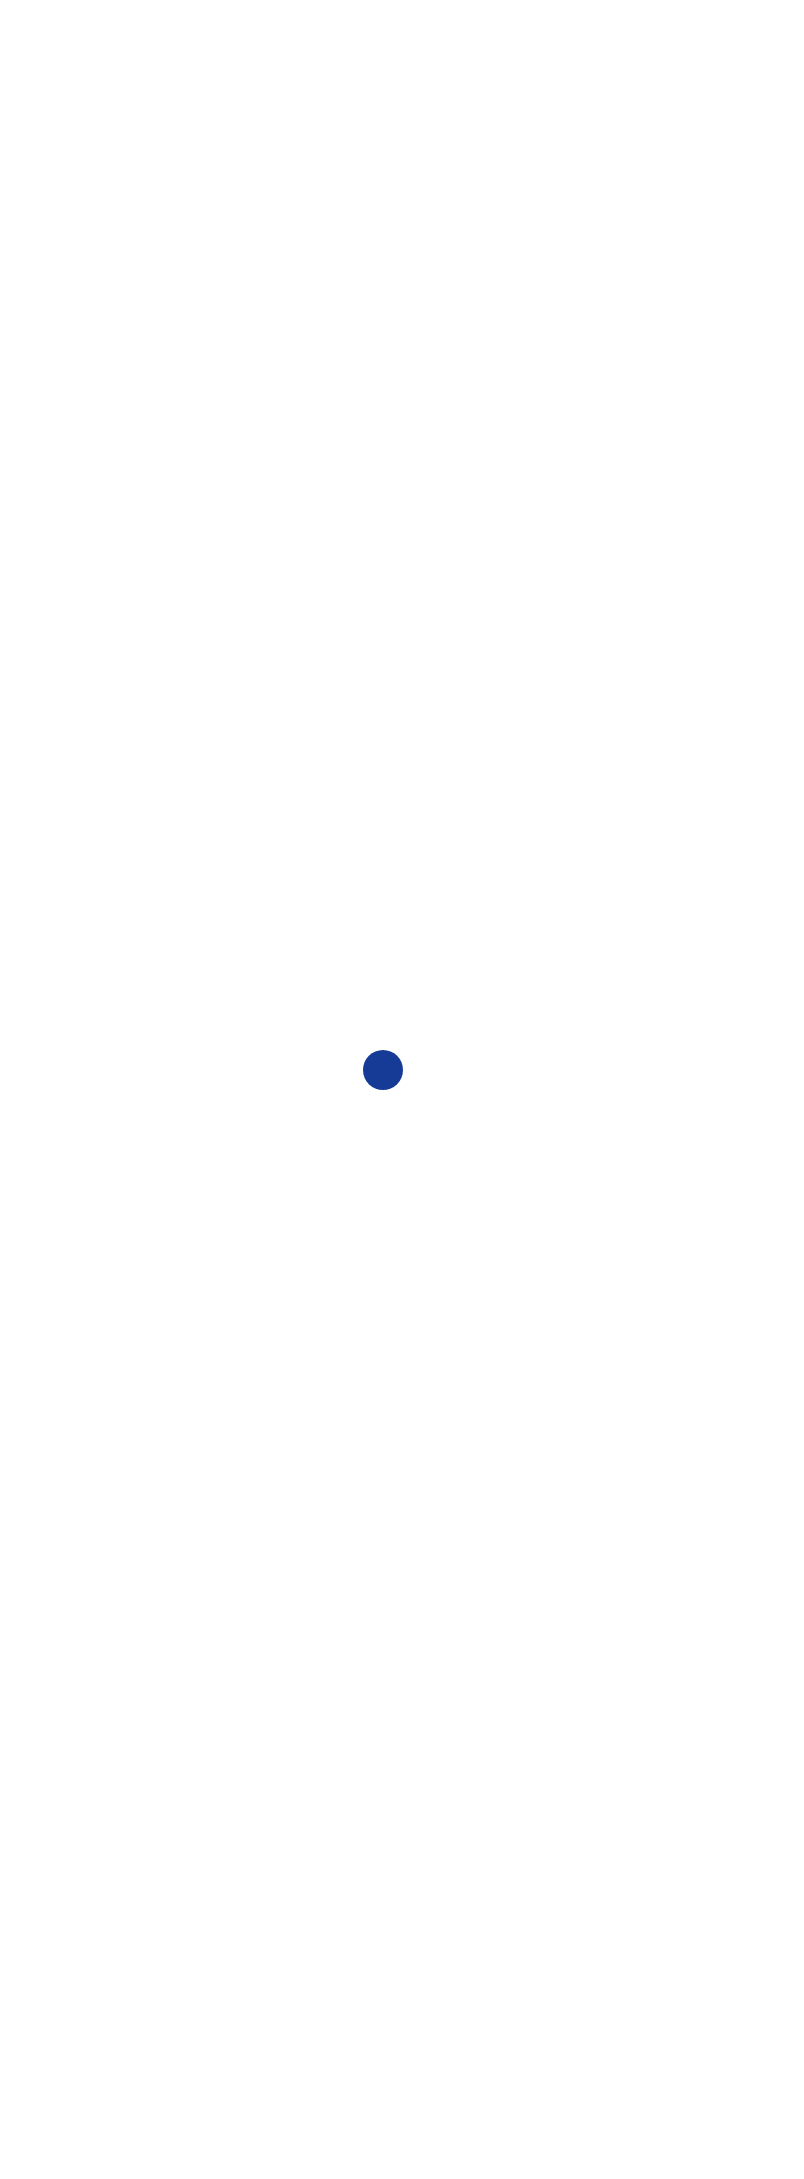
void draw(SkCanvas* c) {
  SkPaint paint;
  paint.setAntiAlias(true);
  c->clear(0xffffffff);
  paint.setColor(0xff153b96);
  c->drawCircle(383, 1070, 20, paint);
}
